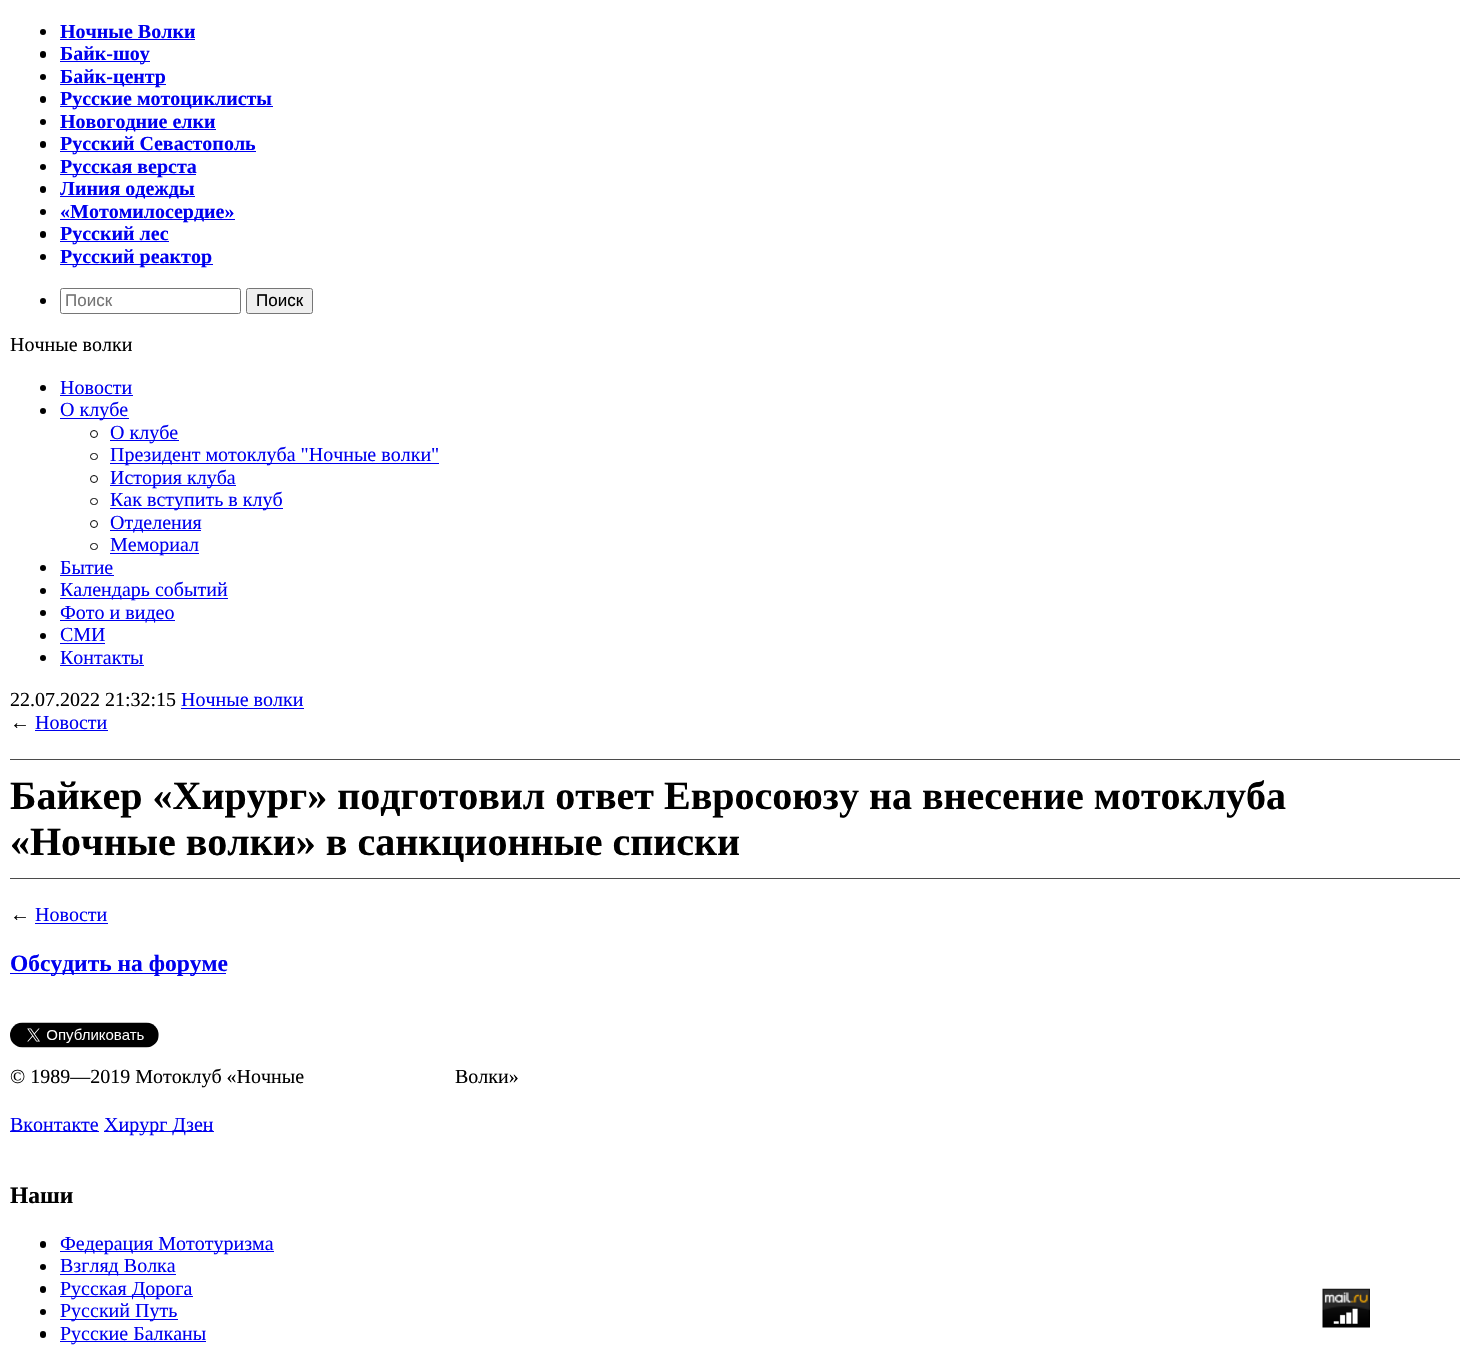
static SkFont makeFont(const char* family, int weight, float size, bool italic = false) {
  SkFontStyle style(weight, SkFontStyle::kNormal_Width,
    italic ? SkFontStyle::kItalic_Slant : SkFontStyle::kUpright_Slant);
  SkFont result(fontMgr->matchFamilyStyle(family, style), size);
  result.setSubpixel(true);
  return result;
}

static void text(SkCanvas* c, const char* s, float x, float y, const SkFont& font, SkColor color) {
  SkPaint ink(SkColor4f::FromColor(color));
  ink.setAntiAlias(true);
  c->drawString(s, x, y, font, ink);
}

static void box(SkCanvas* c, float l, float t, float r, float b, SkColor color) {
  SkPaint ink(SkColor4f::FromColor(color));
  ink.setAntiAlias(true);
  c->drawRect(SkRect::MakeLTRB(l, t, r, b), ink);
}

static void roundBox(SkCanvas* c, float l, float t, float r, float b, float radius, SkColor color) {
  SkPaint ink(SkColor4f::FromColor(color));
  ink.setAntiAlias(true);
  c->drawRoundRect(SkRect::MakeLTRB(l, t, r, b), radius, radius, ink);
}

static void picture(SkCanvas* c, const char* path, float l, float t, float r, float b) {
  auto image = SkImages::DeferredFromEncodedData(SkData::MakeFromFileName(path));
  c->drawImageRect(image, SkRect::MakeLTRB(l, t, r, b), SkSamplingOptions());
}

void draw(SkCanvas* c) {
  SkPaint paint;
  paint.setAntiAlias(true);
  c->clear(0xffffffff);
  paint.setColor(0xff000000);
  c->drawCircle(43, 32, 3, paint);
  SkFont face1 = makeFont("Liberation Serif", 700, 20);
  text(c, "Ночные Волки", 60, 38, face1, 0xff0000ee);
  box(c, 60, 39, 195, 40, 0xff0000ee);
  roundBox(c, 40, 51, 46, 58, 3, 0xff000000);
  box(c, 60, 61, 150, 62, 0xff0000ee);
  text(c, "Байк-шоу", 60, 60, face1, 0xff0000ee);
  c->drawCircle(43, 77, 3, paint);
  box(c, 60, 84, 166, 85, 0xff0000ee);
  text(c, "Байк-центр", 60, 83, face1, 0xff0000ee);
  roundBox(c, 40, 96, 46, 103, 3, 0xff000000);
  box(c, 60, 106, 273, 107, 0xff0000ee);
  text(c, "Русские мотоциклисты", 60, 105, face1, 0xff0000ee);
  c->drawCircle(43, 122, 3, paint);
  box(c, 60, 129, 216, 130, 0xff0000ee);
  text(c, "Новогодние елки", 60, 128, face1, 0xff0000ee);
  roundBox(c, 40, 141, 46, 148, 3, 0xff000000);
  box(c, 60, 151, 256, 152, 0xff0000ee);
  text(c, "Русский Севастополь", 60, 150, face1, 0xff0000ee);
  c->drawCircle(43, 167, 3, paint);
  box(c, 60, 174, 196, 175, 0xff0000ee);
  text(c, "Русская верста", 60, 173, face1, 0xff0000ee);
  roundBox(c, 40, 186, 46, 193, 3, 0xff000000);
  box(c, 60, 196, 195, 197, 0xff0000ee);
  text(c, "Линия одежды", 60, 195, face1, 0xff0000ee);
  c->drawCircle(43, 212, 3, paint);
  box(c, 60, 219, 235, 220, 0xff0000ee);
  text(c, "«Мотомилосердие»", 60, 218, face1, 0xff0000ee);
  roundBox(c, 40, 231, 46, 238, 3, 0xff000000);
  box(c, 60, 241, 169, 242, 0xff0000ee);
  text(c, "Русский лес", 60, 240, face1, 0xff0000ee);
  c->drawCircle(43, 257, 3, paint);
  box(c, 60, 264, 213, 265, 0xff0000ee);
  text(c, "Русский реактор", 60, 263, face1, 0xff0000ee);
  c->drawCircle(43, 301, 3, paint);
  paint.setStyle(SkPaint::kStroke_Style);
  paint.setStrokeWidth(1);
  paint.setColor(0xff767676);
  c->drawRoundRect(SkRect::MakeLTRB(60.5f, 288.5f, 240.5f, 313.5f), 2, 2, paint);
  SkFont face2 = makeFont("Liberation Sans", 400, 17);
  text(c, "Поиск", 65, 306, face2, 0xff757575);
  paint.setStyle(SkPaint::kFill_Style);
  paint.setColor(0xffefefef);
  c->drawRoundRect(SkRect::MakeLTRB(246.5f, 288.5f, 312.5f, 313.5f), 2, 2, paint);
  paint.setStyle(SkPaint::kStroke_Style);
  paint.setColor(0xff767676);
  c->drawRoundRect(SkRect::MakeLTRB(246.5f, 288.5f, 312.5f, 313.5f), 2, 2, paint);
  text(c, "Поиск", 256, 306, face2, 0xff000000);
  SkFont face3 = makeFont("Liberation Serif", 400, 20);
  text(c, "Ночные волки", 10, 351, face3, 0xff000000);
  paint.setStyle(SkPaint::kFill_Style);
  paint.setColor(0xff000000);
  c->drawCircle(43, 388, 3, paint);
  text(c, "Новости", 60, 394, face3, 0xff0000ee);
  box(c, 60, 395, 133, 396, 0xff0000ee);
  c->drawCircle(43, 411, 3, paint);
  box(c, 60, 418, 129, 419, 0xff0000ee);
  text(c, "О клубе", 60, 416, face3, 0xff0000ee);
  paint.setStyle(SkPaint::kStroke_Style);
  c->drawCircle(94, 434, 3.5f, paint);
  box(c, 110, 440, 179, 441, 0xff0000ee);
  text(c, "О клубе", 110, 439, face3, 0xff0000ee);
  c->drawRoundRect(SkRect::MakeLTRB(90.5f, 453.5f, 97.5f, 459.5f), 3, 3, paint);
  box(c, 110, 463, 439, 464, 0xff0000ee);
  text(c, "Президент мотоклуба \"Ночные волки\"", 110, 461, face3, 0xff0000ee);
  c->drawCircle(94, 479, 3.5f, paint);
  box(c, 110, 485, 236, 486, 0xff0000ee);
  text(c, "История клуба", 110, 484, face3, 0xff0000ee);
  c->drawRoundRect(SkRect::MakeLTRB(90.5f, 498.5f, 97.5f, 504.5f), 3, 3, paint);
  box(c, 110, 508, 283, 509, 0xff0000ee);
  text(c, "Как вступить в клуб", 110, 506, face3, 0xff0000ee);
  c->drawCircle(94, 524, 3.5f, paint);
  box(c, 110, 530, 201, 531, 0xff0000ee);
  text(c, "Отделения", 110, 529, face3, 0xff0000ee);
  c->drawRoundRect(SkRect::MakeLTRB(90.5f, 543.5f, 97.5f, 549.5f), 3, 3, paint);
  box(c, 110, 553, 199, 554, 0xff0000ee);
  text(c, "Мемориал", 110, 551, face3, 0xff0000ee);
  paint.setStyle(SkPaint::kFill_Style);
  c->drawCircle(43, 568, 3, paint);
  text(c, "Бытие", 60, 574, face3, 0xff0000ee);
  box(c, 60, 575, 114, 576, 0xff0000ee);
  c->drawCircle(43, 591, 3, paint);
  box(c, 60, 598, 228, 599, 0xff0000ee);
  text(c, "Календарь событий", 60, 596, face3, 0xff0000ee);
  c->drawCircle(43, 613, 3, paint);
  box(c, 60, 620, 175, 621, 0xff0000ee);
  text(c, "Фото и видео", 60, 619, face3, 0xff0000ee);
  c->drawCircle(43, 636, 3, paint);
  text(c, "СМИ", 60, 641, face3, 0xff0000ee);
  box(c, 60, 643, 105, 644, 0xff0000ee);
  c->drawCircle(43, 658, 3, paint);
  text(c, "Контакты", 60, 664, face3, 0xff0000ee);
  box(c, 60, 665, 144, 666, 0xff0000ee);
  text(c, "22.07.2022 21:32:15", 10, 706, face3, 0xff000000);
  text(c, "Ночные волки", 181, 706, face3, 0xff0000ee);
  box(c, 181, 708, 304, 709, 0xff0000ee);
  text(c, "←", 10, 729, face3, 0xff000000);
  text(c, "Новости", 35, 729, face3, 0xff0000ee);
  box(c, 35, 730, 108, 731, 0xff0000ee);
  box(c, 10, 759, 1460, 760, 0xff4b4b4b);
  box(c, 10, 878, 1460, 879, 0xff4b4b4b);
  SkFont face4 = makeFont("Liberation Serif", 700, 40);
  text(c, "Байкер «Хирург» подготовил ответ Евросоюзу на внесение мотоклуба", 10, 809, face4, 0xff000000);
  text(c, "«Ночные волки» в санкционные списки", 10, 855, face4, 0xff000000);
  text(c, "←", 10, 921, face3, 0xff000000);
  text(c, "Новости", 35, 921, face3, 0xff0000ee);
  box(c, 35, 923, 108, 924, 0xff0000ee);
  box(c, 10, 973, 226, 974, 0xff0000ee);
  SkFont face5 = makeFont("Liberation Serif", 700, 23.5f);
  text(c, "Обсудить на форуме", 10, 971, face5, 0xff0000ee);
  picture(c, "img_01.png", 10, 1022, 159, 1048);
  text(c, "© 1989—2019 Мотоклуб «Ночные", 10, 1083, face3, 0xff000000);
  text(c, "Волки»", 455, 1083, face3, 0xff000000);
  box(c, 10, 1131, 99, 1132, 0xff0000ee);
  text(c, "Вконтакте", 10, 1131, face3, 0xff0000ee);
  box(c, 104, 1131, 214, 1132, 0xff0000ee);
  text(c, "Хирург Дзен", 104, 1131, face3, 0xff0000ee);
  text(c, "Наши", 10, 1203, face5, 0xff000000);
  roundBox(c, 40, 1241, 46, 1248, 3, 0xff000000);
  box(c, 60, 1251, 274, 1252, 0xff0000ee);
  text(c, "Федерация Мототуризма", 60, 1250, face3, 0xff0000ee);
  c->drawCircle(43, 1267, 3, paint);
  box(c, 60, 1274, 176, 1275, 0xff0000ee);
  text(c, "Взгляд Волка", 60, 1272, face3, 0xff0000ee);
  roundBox(c, 40, 1286, 46, 1293, 3, 0xff000000);
  box(c, 60, 1296, 193, 1297, 0xff0000ee);
  text(c, "Русская Дорога", 60, 1295, face3, 0xff0000ee);
  c->drawCircle(43, 1312, 3, paint);
  box(c, 60, 1319, 178, 1320, 0xff0000ee);
  text(c, "Русский Путь", 60, 1317, face3, 0xff0000ee);
  roundBox(c, 40, 1331, 46, 1338, 3, 0xff000000);
  box(c, 60, 1341, 206, 1342, 0xff0000ee);
  text(c, "Русские Балканы", 60, 1340, face3, 0xff0000ee);
  picture(c, "img_02.png", 1322, 1288, 1370, 1328);
}
